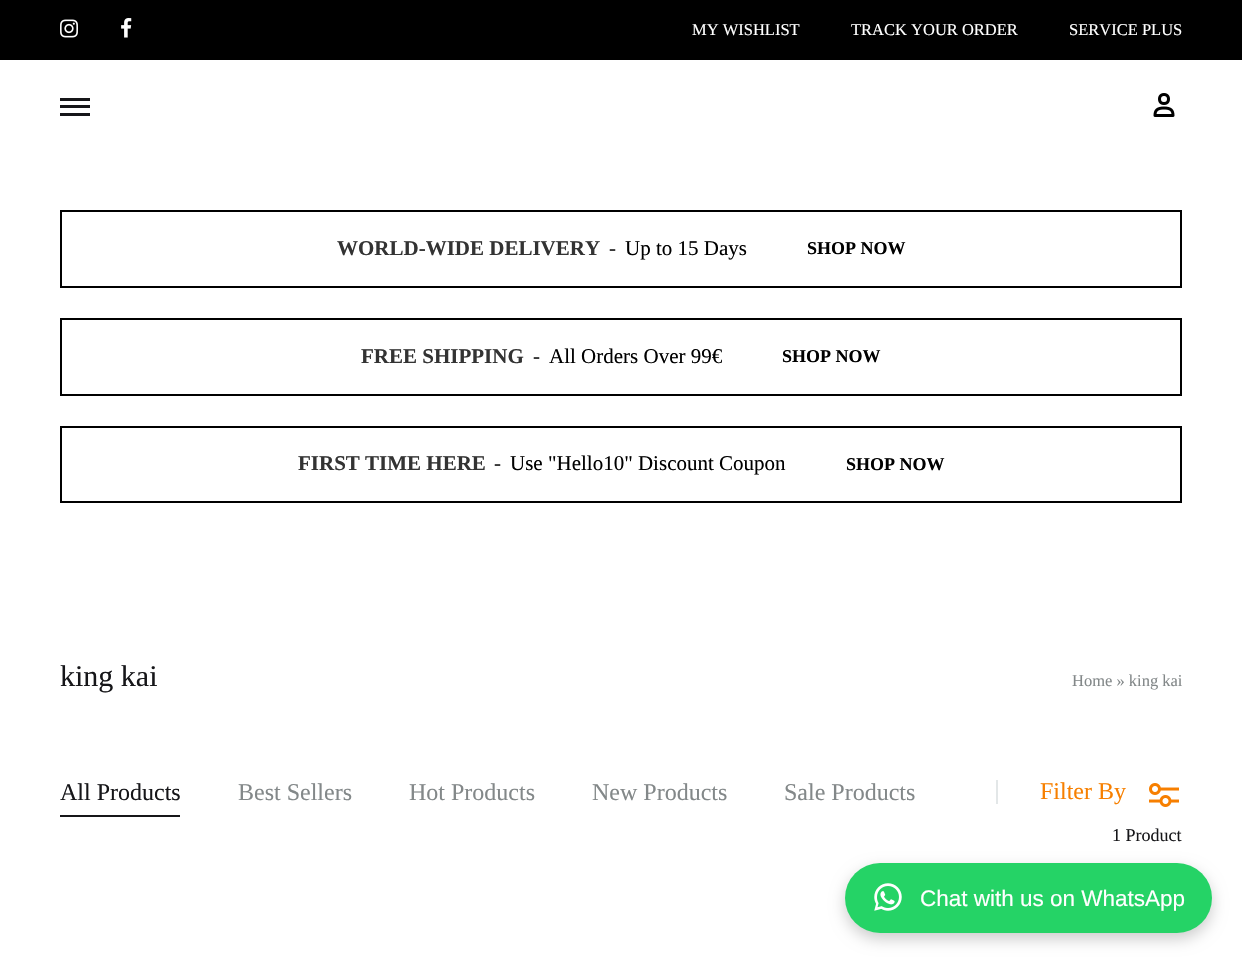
static SkFont makeFont(const char* family, int weight, float size, bool italic = false) {
  SkFontStyle style(weight, SkFontStyle::kNormal_Width,
    italic ? SkFontStyle::kItalic_Slant : SkFontStyle::kUpright_Slant);
  SkFont result(fontMgr->matchFamilyStyle(family, style), size);
  result.setSubpixel(true);
  return result;
}

static void text(SkCanvas* c, const char* s, float x, float y, const SkFont& font, SkColor color) {
  SkPaint ink(SkColor4f::FromColor(color));
  ink.setAntiAlias(true);
  c->drawString(s, x, y, font, ink);
}

static void box(SkCanvas* c, float l, float t, float r, float b, SkColor color) {
  SkPaint ink(SkColor4f::FromColor(color));
  ink.setAntiAlias(true);
  c->drawRect(SkRect::MakeLTRB(l, t, r, b), ink);
}

static void roundBox(SkCanvas* c, float l, float t, float r, float b, float radius, SkColor color) {
  SkPaint ink(SkColor4f::FromColor(color));
  ink.setAntiAlias(true);
  c->drawRoundRect(SkRect::MakeLTRB(l, t, r, b), radius, radius, ink);
}

static void picture(SkCanvas* c, const char* path, float l, float t, float r, float b) {
  auto image = SkImages::DeferredFromEncodedData(SkData::MakeFromFileName(path));
  c->drawImageRect(image, SkRect::MakeLTRB(l, t, r, b), SkSamplingOptions());
}

void draw(SkCanvas* c) {
  SkPaint paint;
  paint.setAntiAlias(true);
  c->clear(0xffffffff);
  box(c, 0, 0, 1242, 60, 0xff000000);
  picture(c, "img_01.png", 60, 19, 78, 38);
  picture(c, "img_02.png", 121, 18, 132, 38);
  SkFont face1 = makeFont("Liberation Serif", 400, 16.5f);
  text(c, "MY WISHLIST", 692, 35, face1, 0xffffffff);
  text(c, "TRACK YOUR ORDER", 851, 35, face1, 0xffffffff);
  text(c, "SERVICE PLUS", 1069, 35, face1, 0xffffffff);
  box(c, 60, 105, 90, 108, 0xff161619);
  box(c, 60, 98, 90, 101, 0xff161619);
  box(c, 60, 113, 90, 116, 0xff161619);
  picture(c, "img_03.png", 1153, 93, 1175, 117);
  paint.setStyle(SkPaint::kStroke_Style);
  paint.setStrokeWidth(2);
  paint.setColor(0xff000000);
  c->drawRect(SkRect::MakeLTRB(61, 211, 1181, 287), paint);
  SkFont face2 = makeFont("Liberation Serif", 700, 21);
  text(c, "WORLD-WIDE DELIVERY", 337, 255, face2, 0xff333333);
  text(c, "-", 609, 255, face2, 0xff333333);
  SkFont face3 = makeFont("Liberation Serif", 400, 21);
  text(c, "Up to 15 Days", 625, 255, face3, 0xff000000);
  SkFont face4 = makeFont("Liberation Serif", 700, 18);
  text(c, "SHOP NOW", 807, 254, face4, 0xff000000);
  c->drawRect(SkRect::MakeLTRB(61, 319, 1181, 395), paint);
  text(c, "FREE SHIPPING", 361, 363, face2, 0xff333333);
  text(c, "-", 533, 363, face2, 0xff333333);
  text(c, "All Orders Over 99€", 549, 363, face3, 0xff000000);
  text(c, "SHOP NOW", 782, 362, face4, 0xff000000);
  c->drawRect(SkRect::MakeLTRB(61, 427, 1181, 502), paint);
  text(c, "FIRST TIME HERE", 298, 470, face2, 0xff333333);
  text(c, "-", 494, 470, face2, 0xff333333);
  text(c, "Use \"Hello10\" Discount Coupon", 510, 470, face3, 0xff000000);
  text(c, "SHOP NOW", 846, 470, face4, 0xff000000);
  SkFont face5 = makeFont("Liberation Serif", 400, 30);
  text(c, "king kai", 60, 686, face5, 0xff161619);
  text(c, "Home » king kai", 1072, 686, face1, 0xff838889);
  SkFont face6 = makeFont("Liberation Serif", 400, 24);
  text(c, "All Products", 60, 800, face6, 0xff161619);
  box(c, 60, 815, 180, 817, 0xff161619);
  text(c, "Best Sellers", 238, 800, face6, 0xff838889);
  text(c, "Hot Products", 409, 800, face6, 0xff838889);
  text(c, "New Products", 592, 800, face6, 0xff838889);
  text(c, "Sale Products", 784, 800, face6, 0xff838889);
  box(c, 996, 780, 998, 804, 0xffe3e7e8);
  text(c, "Filter By", 1040, 799, face6, 0xfff77f00);
  picture(c, "img_04.png", 1149, 783, 1179, 807);
  SkFont face7 = makeFont("Liberation Serif", 400, 18);
  text(c, "1 Product", 1112, 841, face7, 0xff161619);
  paint.setStyle(SkPaint::kFill_Style);
  paint.setColor(0x33000000);
  paint.setMaskFilter(SkMaskFilter::MakeBlur(kNormal_SkBlurStyle, 7.5f));
  c->drawRoundRect(SkRect::MakeLTRB(845, 869, 1212, 939), 35, 35, paint);
  paint.setMaskFilter(nullptr);
  roundBox(c, 845, 863, 1212, 933, 35, 0xff25d366);
  picture(c, "img_05.png", 874, 883, 902, 911);
  SkFont face8 = makeFont("Liberation Sans", 400, 22.5f);
  text(c, "Chat with us on WhatsApp", 920, 906, face8, 0xffffffff);
}
